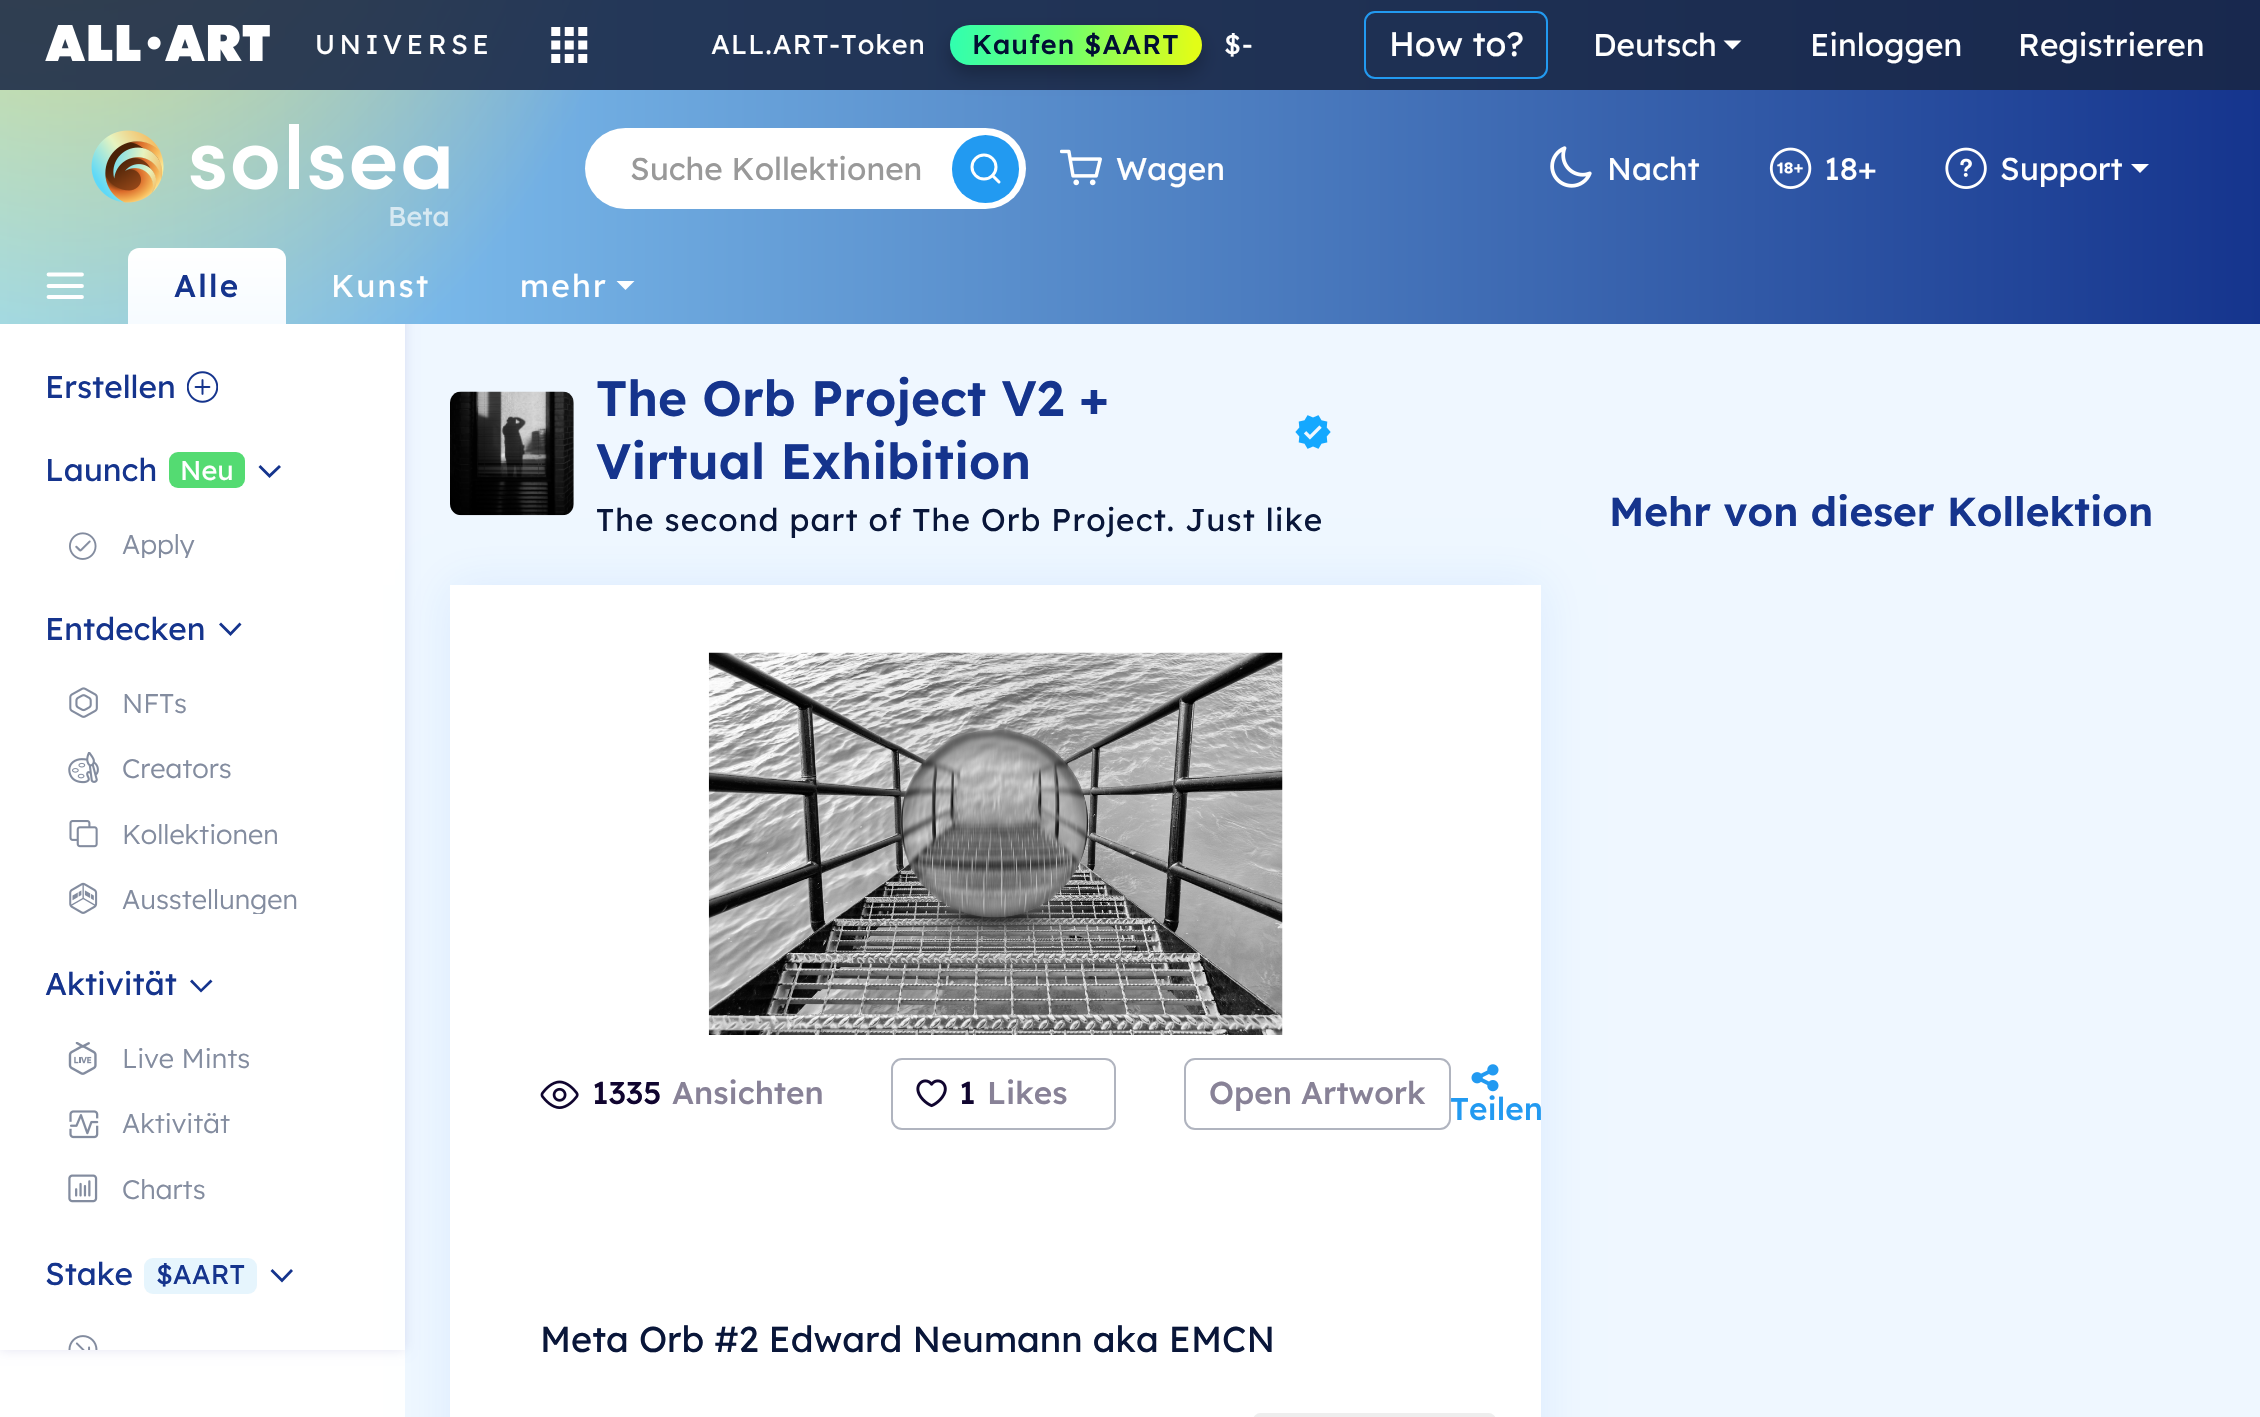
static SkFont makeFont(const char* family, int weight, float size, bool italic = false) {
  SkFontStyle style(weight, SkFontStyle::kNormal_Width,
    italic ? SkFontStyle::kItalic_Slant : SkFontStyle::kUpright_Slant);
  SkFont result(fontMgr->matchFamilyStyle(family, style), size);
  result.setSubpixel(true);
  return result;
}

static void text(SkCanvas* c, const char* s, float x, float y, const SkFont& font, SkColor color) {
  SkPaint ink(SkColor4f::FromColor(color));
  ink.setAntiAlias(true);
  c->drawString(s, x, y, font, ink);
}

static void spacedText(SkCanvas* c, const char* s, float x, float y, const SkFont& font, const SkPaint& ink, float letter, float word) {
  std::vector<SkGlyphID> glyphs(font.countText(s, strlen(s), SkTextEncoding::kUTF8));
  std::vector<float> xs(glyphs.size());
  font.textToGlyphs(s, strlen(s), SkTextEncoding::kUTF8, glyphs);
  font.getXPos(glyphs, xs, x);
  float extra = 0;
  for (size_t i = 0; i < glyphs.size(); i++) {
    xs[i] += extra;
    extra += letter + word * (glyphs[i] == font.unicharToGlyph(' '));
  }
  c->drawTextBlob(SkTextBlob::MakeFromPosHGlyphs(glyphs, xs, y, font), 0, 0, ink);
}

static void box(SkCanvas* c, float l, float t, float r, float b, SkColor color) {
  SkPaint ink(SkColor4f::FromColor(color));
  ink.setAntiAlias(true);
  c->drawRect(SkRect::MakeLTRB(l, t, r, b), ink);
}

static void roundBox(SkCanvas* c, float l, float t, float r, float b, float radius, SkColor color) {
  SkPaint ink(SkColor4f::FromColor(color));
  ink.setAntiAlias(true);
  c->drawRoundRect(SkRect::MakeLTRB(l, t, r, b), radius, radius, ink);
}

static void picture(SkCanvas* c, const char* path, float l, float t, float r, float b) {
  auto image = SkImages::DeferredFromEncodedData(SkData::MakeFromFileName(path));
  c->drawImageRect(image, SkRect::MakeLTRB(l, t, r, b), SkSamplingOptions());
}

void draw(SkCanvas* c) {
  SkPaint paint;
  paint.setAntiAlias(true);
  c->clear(0xffffffff);
  box(c, 405, 324, 2260, 1417, 0xffeff7ff);
  c->save();
  c->clipPath(SkPathBuilder(SkPathFillType::kEvenOdd).moveTo(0, 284).lineTo(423, 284).lineTo(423, 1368).lineTo(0, 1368).close().moveTo(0, 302).lineTo(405, 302).lineTo(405, 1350).lineTo(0, 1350).close().detach(), true);
  paint.setColor(0x1a000080);
  paint.setMaskFilter(SkMaskFilter::MakeBlur(kNormal_SkBlurStyle, 5.5f));
  c->drawRect(SkRect::MakeLTRB(0, 302, 405, 1350), paint);
  paint.setMaskFilter(nullptr);
  c->restore();
  {
    const SkColor colors[] = {0xff15348d, 0xff90d7ff};
    const float stops[] = {0, 1};
    const SkPoint ends[] = {{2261, 162}, {0, 162}};
    paint.setShader(SkGradientShader::MakeLinear(ends, colors, stops, 2, SkTileMode::kClamp));
    paint.setAlpha(255);
  }
  c->drawRect(SkRect::MakeLTRB(0, 0, 2260, 324), paint);
  {
    const SkColor colors[] = {0xffffe352, 0x00ffe352};
    const float stops[] = {0, 1};
    SkMatrix m = SkMatrix::Translate(68, -421).preScale(633, 907);
    paint.setShader(SkGradientShader::MakeRadial({0, 0}, 1, colors, stops, 2, SkTileMode::kClamp, 0, &m));
    paint.setAlpha(255);
  }
  c->drawRect(SkRect::MakeLTRB(0, 0, 614, 324), paint);
  box(c, 0, 0, 2260, 90, 0xde182644);
  picture(c, "img_01.png", 45, 25, 270, 61);
  SkFont face1 = makeFont("Lexend", 400, 27);
  paint.setShader(nullptr);
  paint.setColor(0xffffffff);
  spacedText(c, "UNIVERSE", 315, 54, face1, paint, 4.5f, 0);
  picture(c, "img_02.png", 551, 27, 588, 63);
  spacedText(c, "ALL.ART-Token", 711, 54, face1, paint, 1.1f, 0);
  paint.setColor(0x40000000);
  paint.setMaskFilter(SkMaskFilter::MakeBlur(kNormal_SkBlurStyle, 9));
  c->drawRoundRect(SkRect::MakeLTRB(950, 34, 1202, 74), 20, 20, paint);
  paint.setMaskFilter(nullptr);
  {
    const SkColor colors[] = {0xff2fffb1, 0xff71ff6a, 0xffe2fd17};
    const float stops[] = {0, 0.47f, 0.97f};
    const SkPoint ends[] = {{948, 38}, {1202, 52}};
    paint.setShader(SkGradientShader::MakeLinear(ends, colors, stops, 3, SkTileMode::kClamp));
    paint.setAlpha(255);
  }
  c->drawRoundRect(SkRect::MakeLTRB(950, 25, 1202, 65), 20, 20, paint);
  SkFont face2 = makeFont("Lexend", 500, 27);
  paint.setShader(nullptr);
  paint.setColor(0xff020f33);
  spacedText(c, "Kaufen $AART", 972, 54, face2, paint, 1.1f, 0);
  paint.setColor(0xffffffff);
  spacedText(c, "$-", 1224, 54, face1, paint, 1.1f, 0);
  paint.setStyle(SkPaint::kStroke_Style);
  paint.setStrokeWidth(2);
  paint.setColor(0xff229af1);
  c->drawRoundRect(SkRect::MakeLTRB(1365, 12, 1547, 78), 10, 10, paint);
  SkFont face3 = makeFont("Lexend", 400, 34);
  text(c, "How to?", 1389, 56, face3, 0xffffffff);
  SkFont face4 = makeFont("Lexend", 400, 31.5f);
  text(c, "Deutsch", 1593, 56, face4, 0xffffffff);
  paint.setStyle(SkPaint::kFill_Style);
  paint.setColor(0xffffffff);
  c->drawPath(SkPathBuilder().moveTo(1723.5f, 40.5f).lineTo(1741.5f, 40.5f).lineTo(1732.5f, 49.5f).close().detach(), paint);
  text(c, "Einloggen", 1810, 56, face4, 0xffffffff);
  text(c, "Registrieren", 2018, 56, face4, 0xffffffff);
  roundBox(c, 585, 128, 1026, 209, 40.5f, 0xffffffff);
  text(c, "Suche Kollektionen", 630, 180, face4, 0xff999999);
  roundBox(c, 952, 135, 1019, 203, 33.5f, 0xff229af1);
  paint.setStyle(SkPaint::kStroke_Style);
  paint.setStrokeWidth(3);
  c->drawCircle(984, 167, 12, paint);
  paint.setStrokeCap(SkPaint::kRound_Cap);
  paint.setStrokeJoin(SkPaint::kRound_Join);
  c->drawPath(SkPathBuilder().moveTo(999, 182).lineTo(992.5f, 175.5f).detach(), paint);
  picture(c, "img_03.png", 91, 124, 449, 203);
  text(c, "Beta", 388, 226, face1, 0xffd7e9f2);
  picture(c, "img_04.png", 1060, 149, 1102, 186);
  text(c, "Wagen", 1116, 180, face4, 0xffffffff);
  picture(c, "img_05.png", 1550, 146, 1592, 188);
  text(c, "Nacht", 1607, 180, face4, 0xffffffff);
  picture(c, "img_06.png", 1769, 147, 1812, 189);
  text(c, "18+", 1824, 180, face4, 0xffffffff);
  picture(c, "img_07.png", 1945, 147, 1987, 189);
  text(c, "Support", 2000, 180, face4, 0xffffffff);
  paint.setStyle(SkPaint::kFill_Style);
  c->drawPath(SkPathBuilder().moveTo(2131, 164).lineTo(2149, 164).lineTo(2140, 173).close().detach(), paint);
  paint.setStyle(SkPaint::kStroke_Style);
  paint.setStrokeWidth(3.8f);
  c->drawPath(SkPathBuilder().moveTo(48.5f, 286).lineTo(82, 286).moveTo(48.5f, 274.5f).lineTo(82, 274.5f).moveTo(48.5f, 297).lineTo(82, 297).detach(), paint);
  paint.setStyle(SkPaint::kFill_Style);
  {
    const SkColor colors[] = {0xfff6fbff, 0xffffffff};
    const float stops[] = {0, 1};
    const SkPoint ends[] = {{207, 324}, {207, 248}};
    paint.setShader(SkGradientShader::MakeLinear(ends, colors, stops, 2, SkTileMode::kClamp));
    paint.setAlpha(255);
  }
  c->drawPath(SkPathBuilder().moveTo(139, 248).lineTo(275, 248).cubicTo(281, 248, 286, 253, 286, 259).lineTo(286, 324).lineTo(128, 324).lineTo(128, 259).cubicTo(128, 253, 133, 248, 139, 248).close().detach(), paint);
  SkFont face5 = makeFont("Lexend", 500, 31.5f);
  paint.setShader(nullptr);
  paint.setColor(0xff15348d);
  spacedText(c, "Alle", 174, 297, face5, paint, 2.25f, 0);
  paint.setColor(0xffffffff);
  spacedText(c, "Kunst", 331, 297, face4, paint, 2.25f, 0);
  spacedText(c, "mehr", 520, 297, face4, paint, 2.25f, 0);
  c->drawPath(SkPathBuilder().moveTo(616.5f, 281).lineTo(634.5f, 281).lineTo(625.5f, 290).close().detach(), paint);
  text(c, "Erstellen", 45, 398, face4, 0xff15348d);
  picture(c, "img_08.png", 187, 371, 218, 403);
  text(c, "Launch", 45, 481, face4, 0xff15348d);
  roundBox(c, 169, 452, 245, 488, 9, 0xff54db72);
  text(c, "Neu", 180, 480, face1, 0xffffffff);
  paint.setColor(0xff15348d);
  c->drawPath(SkPathBuilder().moveTo(260.5f, 465).lineTo(258.5f, 467).lineTo(269.5f, 478).lineTo(281, 467).lineTo(279, 465).lineTo(269.5f, 474).close().detach(), paint);
  picture(c, "img_09.png", 69, 532, 97, 560);
  c->save();
  c->clipRect(SkRect::MakeLTRB(122, 531, 405, 558));
  SkFont face6 = makeFont("Lexend", 300, 27);
  text(c, "Apply", 122, 554, face6, 0xff838c9f);
  c->restore();
  text(c, "Entdecken", 45, 640, face4, 0xff15348d);
  c->drawPath(SkPathBuilder().moveTo(221, 622.5f).lineTo(219, 624.5f).lineTo(230.5f, 636).lineTo(241.5f, 624.5f).lineTo(239.5f, 622.5f).lineTo(230.5f, 632).close().detach(), paint);
  picture(c, "img_10.png", 69, 687, 98, 718);
  text(c, "NFTs", 122, 713, face6, 0xff838c9f);
  picture(c, "img_11.png", 68, 752, 99, 784);
  text(c, "Creators", 122, 778, face6, 0xff838c9f);
  picture(c, "img_12.png", 69, 820, 98, 848);
  text(c, "Kollektionen", 122, 844, face6, 0xff838c9f);
  picture(c, "img_13.png", 69, 882, 98, 914);
  c->save();
  c->clipRect(SkRect::MakeLTRB(122, 887, 405, 914));
  text(c, "Ausstellungen", 122, 909, face6, 0xff838c9f);
  c->restore();
  text(c, "Aktivität", 45, 995, face4, 0xff15348d);
  c->drawPath(SkPathBuilder().moveTo(192, 979.5f).lineTo(190, 981.5f).lineTo(201, 992.5f).lineTo(212.5f, 981.5f).lineTo(210.5f, 979.5f).lineTo(201, 989).close().detach(), paint);
  picture(c, "img_14.png", 68, 1042, 97, 1075);
  text(c, "Live Mints", 122, 1068, face6, 0xff838c9f);
  picture(c, "img_15.png", 69, 1110, 99, 1139);
  text(c, "Aktivität", 122, 1133, face6, 0xff838c9f);
  picture(c, "img_16.png", 68, 1174, 98, 1203);
  text(c, "Charts", 122, 1199, face6, 0xff838c9f);
  text(c, "Stake", 45, 1285, face4, 0xff15348d);
  roundBox(c, 144, 1258, 257, 1294, 9, 0xffe6f5fd);
  text(c, "$AART", 156, 1284, face1, 0xff15348d);
  c->drawPath(SkPathBuilder().moveTo(272.5f, 1269).lineTo(270.5f, 1271).lineTo(282, 1282.5f).lineTo(293, 1271).lineTo(291, 1269).lineTo(282, 1278.5f).close().detach(), paint);
  picture(c, "img_17.png", 68, 1335, 98, 1350);
  picture(c, "img_18.png", 450, 391, 574, 516);
  SkFont face7 = makeFont("Lexend", 600, 49.5f);
  text(c, "The Orb Project V2 +", 596, 416, face7, 0xff15348d);
  text(c, "Virtual Exhibition", 596, 479, face7, 0xff15348d);
  picture(c, "img_19.png", 1295, 415, 1331, 449);
  paint.setColor(0x170070ff);
  paint.setMaskFilter(SkMaskFilter::MakeBlur(kNormal_SkBlurStyle, 22.5f));
  c->drawRect(SkRect::MakeLTRB(450, 585, 1541, 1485), paint);
  paint.setMaskFilter(nullptr);
  paint.setColor(0xff091639);
  spacedText(c, "The second part of The Orb Project. Just like", 596, 531, face4, paint, 1.1f, 0);
  SkFont face8 = makeFont("Lexend", 600, 40.5f);
  text(c, "Mehr von dieser Kollektion", 1609, 526, face8, 0xff15348d);
  box(c, 450, 585, 1541, 1417, 0xffffffff);
  picture(c, "img_20.png", 708, 652, 1283, 1035);
  picture(c, "img_21.png", 540, 1080, 579, 1109);
  text(c, "1335", 592, 1104, face5, 0xff10052f);
  text(c, "Ansichten", 672, 1104, face5, 0xff888297);
  paint.setStyle(SkPaint::kStroke_Style);
  paint.setStrokeWidth(2);
  paint.setStrokeCap(SkPaint::kButt_Cap);
  paint.setStrokeJoin(SkPaint::kMiter_Join);
  paint.setColor(0xffb0b4bf);
  c->drawRoundRect(SkRect::MakeLTRB(892, 1059, 1115, 1129), 10, 10, paint);
  picture(c, "img_22.png", 916, 1079, 947, 1108);
  text(c, "1", 959, 1104, face5, 0xff10052f);
  text(c, "Likes", 987, 1104, face5, 0xff888297);
  c->drawRoundRect(SkRect::MakeLTRB(1185, 1059, 1450, 1129), 10, 10, paint);
  text(c, "Open Artwork", 1209, 1104, face5, 0xff888297);
  picture(c, "img_23.png", 1471, 1064, 1499, 1092);
  text(c, "Teilen", 1450, 1120, face5, 0xff229af1);
  SkFont face9 = makeFont("Lexend", 400, 36);
  text(c, "Meta Orb #2 Edward Neumann aka EMCN", 540, 1352, face9, 0xff091639);
  roundBox(c, 1253, 1413, 1496, 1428, 11, 0xffeeeeee);
}
